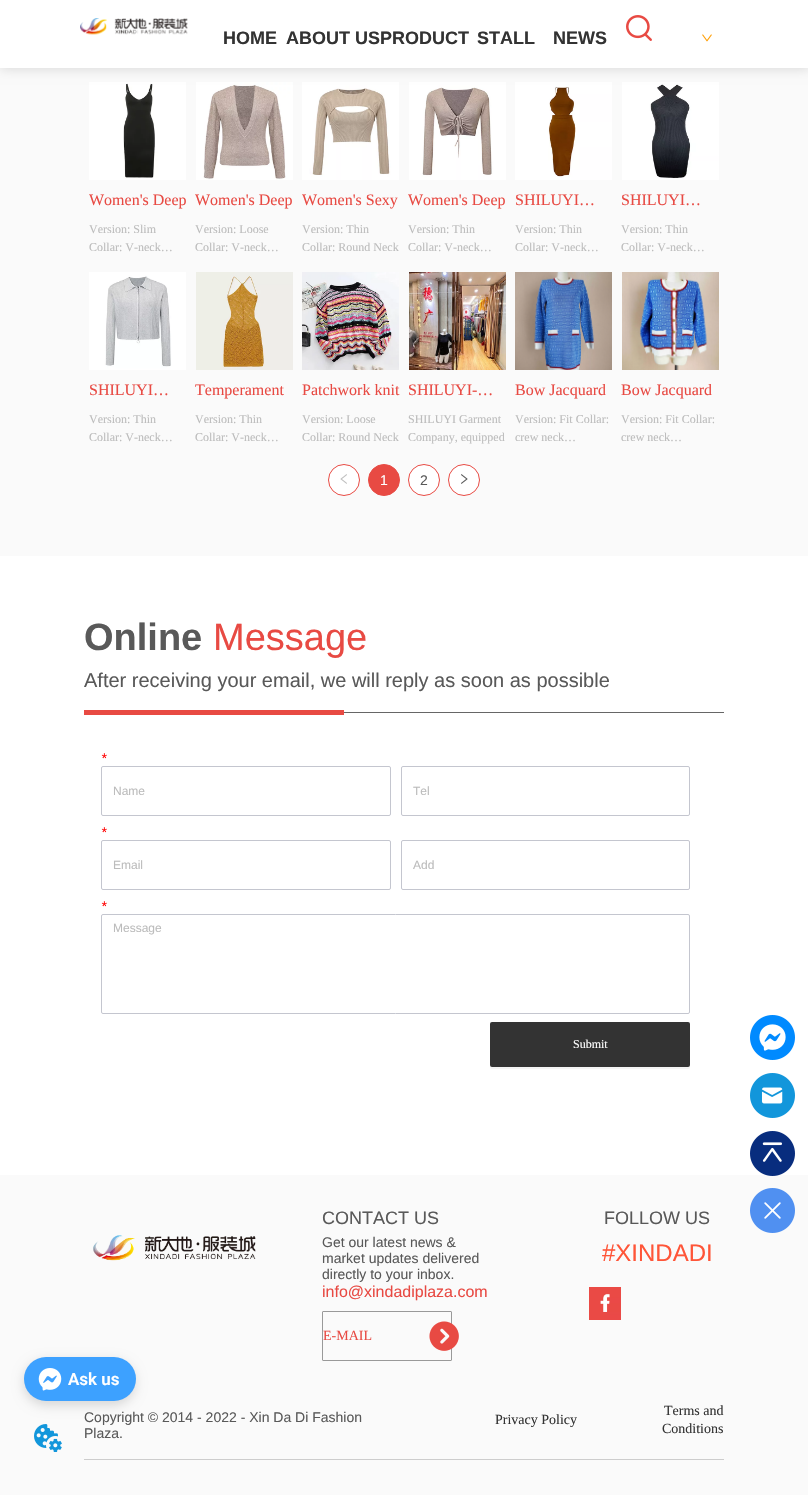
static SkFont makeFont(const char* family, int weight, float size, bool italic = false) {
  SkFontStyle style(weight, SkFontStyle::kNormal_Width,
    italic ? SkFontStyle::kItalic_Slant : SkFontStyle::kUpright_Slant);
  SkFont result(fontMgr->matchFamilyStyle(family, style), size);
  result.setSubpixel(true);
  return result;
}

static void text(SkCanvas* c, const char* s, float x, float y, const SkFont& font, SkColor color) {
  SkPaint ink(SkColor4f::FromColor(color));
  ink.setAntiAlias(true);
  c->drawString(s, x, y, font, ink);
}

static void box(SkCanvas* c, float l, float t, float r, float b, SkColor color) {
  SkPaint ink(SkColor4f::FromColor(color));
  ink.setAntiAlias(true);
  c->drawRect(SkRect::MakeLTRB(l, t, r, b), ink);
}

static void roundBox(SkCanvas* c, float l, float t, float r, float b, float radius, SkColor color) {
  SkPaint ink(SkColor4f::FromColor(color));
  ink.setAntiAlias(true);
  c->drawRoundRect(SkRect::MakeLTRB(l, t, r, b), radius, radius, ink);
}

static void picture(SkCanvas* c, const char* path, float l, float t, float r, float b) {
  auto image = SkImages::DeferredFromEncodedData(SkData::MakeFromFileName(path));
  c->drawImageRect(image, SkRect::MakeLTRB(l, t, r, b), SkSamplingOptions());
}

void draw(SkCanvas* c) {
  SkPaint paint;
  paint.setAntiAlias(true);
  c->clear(0xffffffff);
  box(c, 0, 68, 808, 556, 0xfffafafa);
  picture(c, "img_04.png", 89, 82, 186, 180);
  picture(c, "img_05.png", 196, 82, 293, 180);
  picture(c, "img_06.png", 302, 82, 399, 180);
  picture(c, "img_07.png", 409, 82, 506, 180);
  picture(c, "img_08.png", 515, 82, 612, 180);
  picture(c, "img_09.png", 622, 82, 719, 180);
  paint.setColor(0x21000000);
  paint.setMaskFilter(SkMaskFilter::MakeBlur(kNormal_SkBlurStyle, 5.5f));
  c->drawRect(SkRect::MakeLTRB(0, -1, 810, 69), paint);
  paint.setMaskFilter(nullptr);
  box(c, 0, 0, 808, 68, 0xffffffff);
  picture(c, "img_01.png", 80, 18, 188, 35);
  picture(c, "img_02.png", 626, 15, 652, 41);
  SkFont face1 = makeFont("Liberation Sans", 700, 18);
  text(c, "HOME", 223, 44, face1, 0xff333333);
  text(c, "ABOUT US", 286, 44, face1, 0xff333333);
  c->save();
  c->clipRect(SkRect::MakeLTRB(380, 8, 469, 68));
  text(c, "PRODUCT", 380, 44, face1, 0xff333333);
  c->restore();
  text(c, "STALL", 477, 44, face1, 0xff333333);
  text(c, "NEWS", 553, 44, face1, 0xff333333);
  picture(c, "img_03.png", 702, 34, 712, 42);
  SkFont face2 = makeFont("Liberation Serif", 400, 16);
  text(c, "Women's Deep", 89, 205, face2, 0xffe84a43);
  SkFont face3 = makeFont("Liberation Serif", 400, 12);
  text(c, "Version: Slim", 89, 233, face3, 0xffbcbcbc);
  text(c, "Collar: V-neck…", 89, 251, face3, 0xffbcbcbc);
  text(c, "Women's Deep", 195, 205, face2, 0xffe84a43);
  text(c, "Version: Loose", 195, 233, face3, 0xffbcbcbc);
  text(c, "Collar: V-neck…", 195, 251, face3, 0xffbcbcbc);
  text(c, "Women's Sexy", 302, 205, face2, 0xffe84a43);
  text(c, "Version: Thin", 302, 233, face3, 0xffbcbcbc);
  text(c, "Collar: Round Neck", 302, 251, face3, 0xffbcbcbc);
  text(c, "Women's Deep", 408, 205, face2, 0xffe84a43);
  text(c, "Version: Thin", 408, 233, face3, 0xffbcbcbc);
  text(c, "Collar: V-neck…", 408, 251, face3, 0xffbcbcbc);
  text(c, "SHILUYI…", 515, 205, face2, 0xffe84a43);
  text(c, "Version: Thin", 515, 233, face3, 0xffbcbcbc);
  text(c, "Collar: V-neck…", 515, 251, face3, 0xffbcbcbc);
  text(c, "SHILUYI…", 621, 205, face2, 0xffe84a43);
  text(c, "Version: Thin", 621, 233, face3, 0xffbcbcbc);
  text(c, "Collar: V-neck…", 621, 251, face3, 0xffbcbcbc);
  picture(c, "img_10.png", 89, 272, 186, 370);
  text(c, "SHILUYI…", 89, 395, face2, 0xffe84a43);
  text(c, "Version: Thin", 89, 423, face3, 0xffbcbcbc);
  text(c, "Collar: V-neck…", 89, 441, face3, 0xffbcbcbc);
  picture(c, "img_11.png", 196, 272, 293, 370);
  text(c, "Temperament", 195, 395, face2, 0xffe84a43);
  text(c, "Version: Thin", 195, 423, face3, 0xffbcbcbc);
  text(c, "Collar: V-neck…", 195, 441, face3, 0xffbcbcbc);
  picture(c, "img_12.png", 302, 272, 399, 370);
  text(c, "Patchwork knit", 302, 395, face2, 0xffe84a43);
  text(c, "Version: Loose", 302, 423, face3, 0xffbcbcbc);
  text(c, "Collar: Round Neck", 302, 441, face3, 0xffbcbcbc);
  picture(c, "img_13.png", 409, 272, 506, 370);
  text(c, "SHILUYI-…", 408, 395, face2, 0xffe84a43);
  text(c, "SHILUYI Garment", 408, 423, face3, 0xffbcbcbc);
  text(c, "Company, equipped", 408, 441, face3, 0xffbcbcbc);
  picture(c, "img_14.png", 515, 272, 612, 370);
  text(c, "Bow Jacquard", 515, 395, face2, 0xffe84a43);
  text(c, "Version: Fit Collar:", 515, 423, face3, 0xffbcbcbc);
  text(c, "crew neck…", 515, 441, face3, 0xffbcbcbc);
  picture(c, "img_15.png", 622, 272, 719, 370);
  text(c, "Bow Jacquard", 621, 395, face2, 0xffe84a43);
  text(c, "Version: Fit Collar:", 621, 423, face3, 0xffbcbcbc);
  text(c, "crew neck…", 621, 441, face3, 0xffbcbcbc);
  paint.setColor(0xffffffff);
  c->drawCircle(344, 480, 15.5f, paint);
  paint.setStyle(SkPaint::kStroke_Style);
  paint.setStrokeWidth(1);
  paint.setColor(0xffe84a43);
  c->drawCircle(344, 480, 15.5f, paint);
  picture(c, "img_16.png", 340, 474, 347, 484);
  paint.setStyle(SkPaint::kFill_Style);
  c->drawCircle(384, 480, 15.5f, paint);
  paint.setStyle(SkPaint::kStroke_Style);
  c->drawCircle(384, 480, 15.5f, paint);
  SkFont face4 = makeFont("Liberation Sans", 400, 14);
  text(c, "1", 380, 485, face4, 0xffffffff);
  paint.setStyle(SkPaint::kFill_Style);
  paint.setColor(0xffffffff);
  c->drawCircle(424, 480, 15.5f, paint);
  paint.setStyle(SkPaint::kStroke_Style);
  paint.setColor(0xffe84a43);
  c->drawCircle(424, 480, 15.5f, paint);
  text(c, "2", 420, 485, face4, 0xff595959);
  paint.setStyle(SkPaint::kFill_Style);
  paint.setColor(0xffffffff);
  c->drawCircle(464, 480, 15.5f, paint);
  paint.setStyle(SkPaint::kStroke_Style);
  paint.setColor(0xffe84a43);
  c->drawCircle(464, 480, 15.5f, paint);
  picture(c, "img_17.png", 461, 474, 468, 484);
  SkFont face5 = makeFont("Liberation Sans", 700, 38);
  text(c, "Online", 84, 650, face5, 0xff595959);
  SkFont face6 = makeFont("Liberation Sans", 400, 38);
  text(c, "Message", 213, 650, face6, 0xffe84a43);
  SkFont face7 = makeFont("Liberation Sans", 400, 20);
  text(c, "After receiving your email, we will reply as soon as possible", 84, 687, face7, 0xff595959);
  box(c, 84, 710, 344, 715, 0xffe84a43);
  box(c, 344, 712, 724, 713, 0xff666666);
  SkFont face8 = makeFont("Liberation Sans", 400, 14, true);
  text(c, "*", 101, 763, face8, 0xffff0000);
  paint.setColor(0xffc4c6cf);
  c->drawRoundRect(SkRect::MakeLTRB(101.5f, 766.5f, 390.5f, 815.5f), 1.5f, 1.5f, paint);
  SkFont face9 = makeFont("Liberation Sans", 400, 12);
  text(c, "Name", 113, 795, face9, 0xffbcbcbc);
  c->drawRoundRect(SkRect::MakeLTRB(401.5f, 766.5f, 689.5f, 815.5f), 1.5f, 1.5f, paint);
  text(c, "Tel", 413, 795, face9, 0xffbcbcbc);
  text(c, "*", 101, 837, face8, 0xffff0000);
  c->drawRoundRect(SkRect::MakeLTRB(101.5f, 840.5f, 390.5f, 889.5f), 1.5f, 1.5f, paint);
  text(c, "Email", 113, 869, face9, 0xffbcbcbc);
  c->drawRoundRect(SkRect::MakeLTRB(401.5f, 840.5f, 689.5f, 889.5f), 1.5f, 1.5f, paint);
  text(c, "Add", 413, 869, face9, 0xffbcbcbc);
  text(c, "*", 101, 911, face8, 0xffff0000);
  c->drawRoundRect(SkRect::MakeLTRB(101.5f, 914.5f, 689.5f, 1013.5f), 1.5f, 1.5f, paint);
  text(c, "Message", 113, 932, face9, 0xffbcbcbc);
  paint.setStyle(SkPaint::kFill_Style);
  paint.setColor(0xfff4f4f4);
  c->drawPath(SkPathBuilder().moveTo(490, 1065).cubicTo(490, 1067, 490, 1069, 492, 1069).lineTo(688, 1069).cubicTo(690, 1069, 690, 1067, 690, 1065).cubicTo(690, 1066, 689, 1067, 688, 1067).lineTo(492, 1067).cubicTo(491, 1067, 490, 1066, 490, 1065).close().detach(), paint);
  roundBox(c, 490, 1022, 690, 1067, 2, 0xff333333);
  text(c, "Submit", 573, 1048, face3, 0xffffffff);
  box(c, 0, 1175, 808, 1495, 0xfffafafa);
  picture(c, "img_18.png", 93, 1235, 256, 1261);
  SkFont face10 = makeFont("Liberation Sans", 400, 18);
  text(c, "CONTACT US", 322, 1224, face10, 0xff595959);
  picture(c, "img_19.png", 750, 1015, 795, 1060);
  picture(c, "img_20.png", 750, 1073, 795, 1118);
  picture(c, "img_21.png", 750, 1131, 795, 1176);
  picture(c, "img_22.png", 750, 1188, 795, 1233);
  text(c, "Get our latest news &", 322, 1247, face4, 0xff595959);
  text(c, "market updates delivered", 322, 1263, face4, 0xff595959);
  text(c, "directly to your inbox.", 322, 1279, face4, 0xff595959);
  SkFont face11 = makeFont("Liberation Sans", 400, 16);
  text(c, "info@xindadiplaza.com", 322, 1297, face11, 0xffe84a43);
  paint.setStyle(SkPaint::kStroke_Style);
  paint.setColor(0xff999999);
  c->drawRoundRect(SkRect::MakeLTRB(322.5f, 1311.5f, 451.5f, 1360.5f), 0.5f, 0.5f, paint);
  SkFont face12 = makeFont("Liberation Serif", 400, 14);
  text(c, "E-MAIL", 323, 1340, face12, 0xffe84a43);
  picture(c, "img_23.png", 429, 1321, 459, 1351);
  text(c, "FOLLOW US", 604, 1224, face10, 0xff595959);
  SkFont face13 = makeFont("Liberation Sans", 400, 24);
  text(c, "#XINDADI", 602, 1261, face13, 0xffff5538);
  picture(c, "img_24.png", 589, 1287, 621, 1320);
  text(c, "Copyright © 2014 - 2022 - Xin Da Di Fashion", 84, 1422, face4, 0xff595959);
  text(c, "Plaza.", 84, 1438, face4, 0xff595959);
  text(c, "Privacy Policy", 495, 1424, face12, 0xff333333);
  text(c, "Terms and", 664, 1415, face12, 0xff333333);
  text(c, "Conditions", 662, 1433, face12, 0xff333333);
  box(c, 84, 1459, 724, 1460, 0xffcdcdcd);
  paint.setStyle(SkPaint::kFill_Style);
  paint.setColor(0x26000000);
  paint.setMaskFilter(SkMaskFilter::MakeBlur(kNormal_SkBlurStyle, 6));
  c->drawRoundRect(SkRect::MakeLTRB(24, 1361, 135, 1405), 22, 22, paint);
  paint.setMaskFilter(nullptr);
  roundBox(c, 24, 1357, 136, 1401, 22, 0xff3da1ff);
  picture(c, "img_25.png", 38, 1368, 62, 1391);
  SkFont face14 = makeFont("Roboto", 600, 17);
  text(c, "Ask us", 68, 1385, face14, 0xffffffff);
  picture(c, "img_26.png", 34, 1424, 62, 1452);
}
